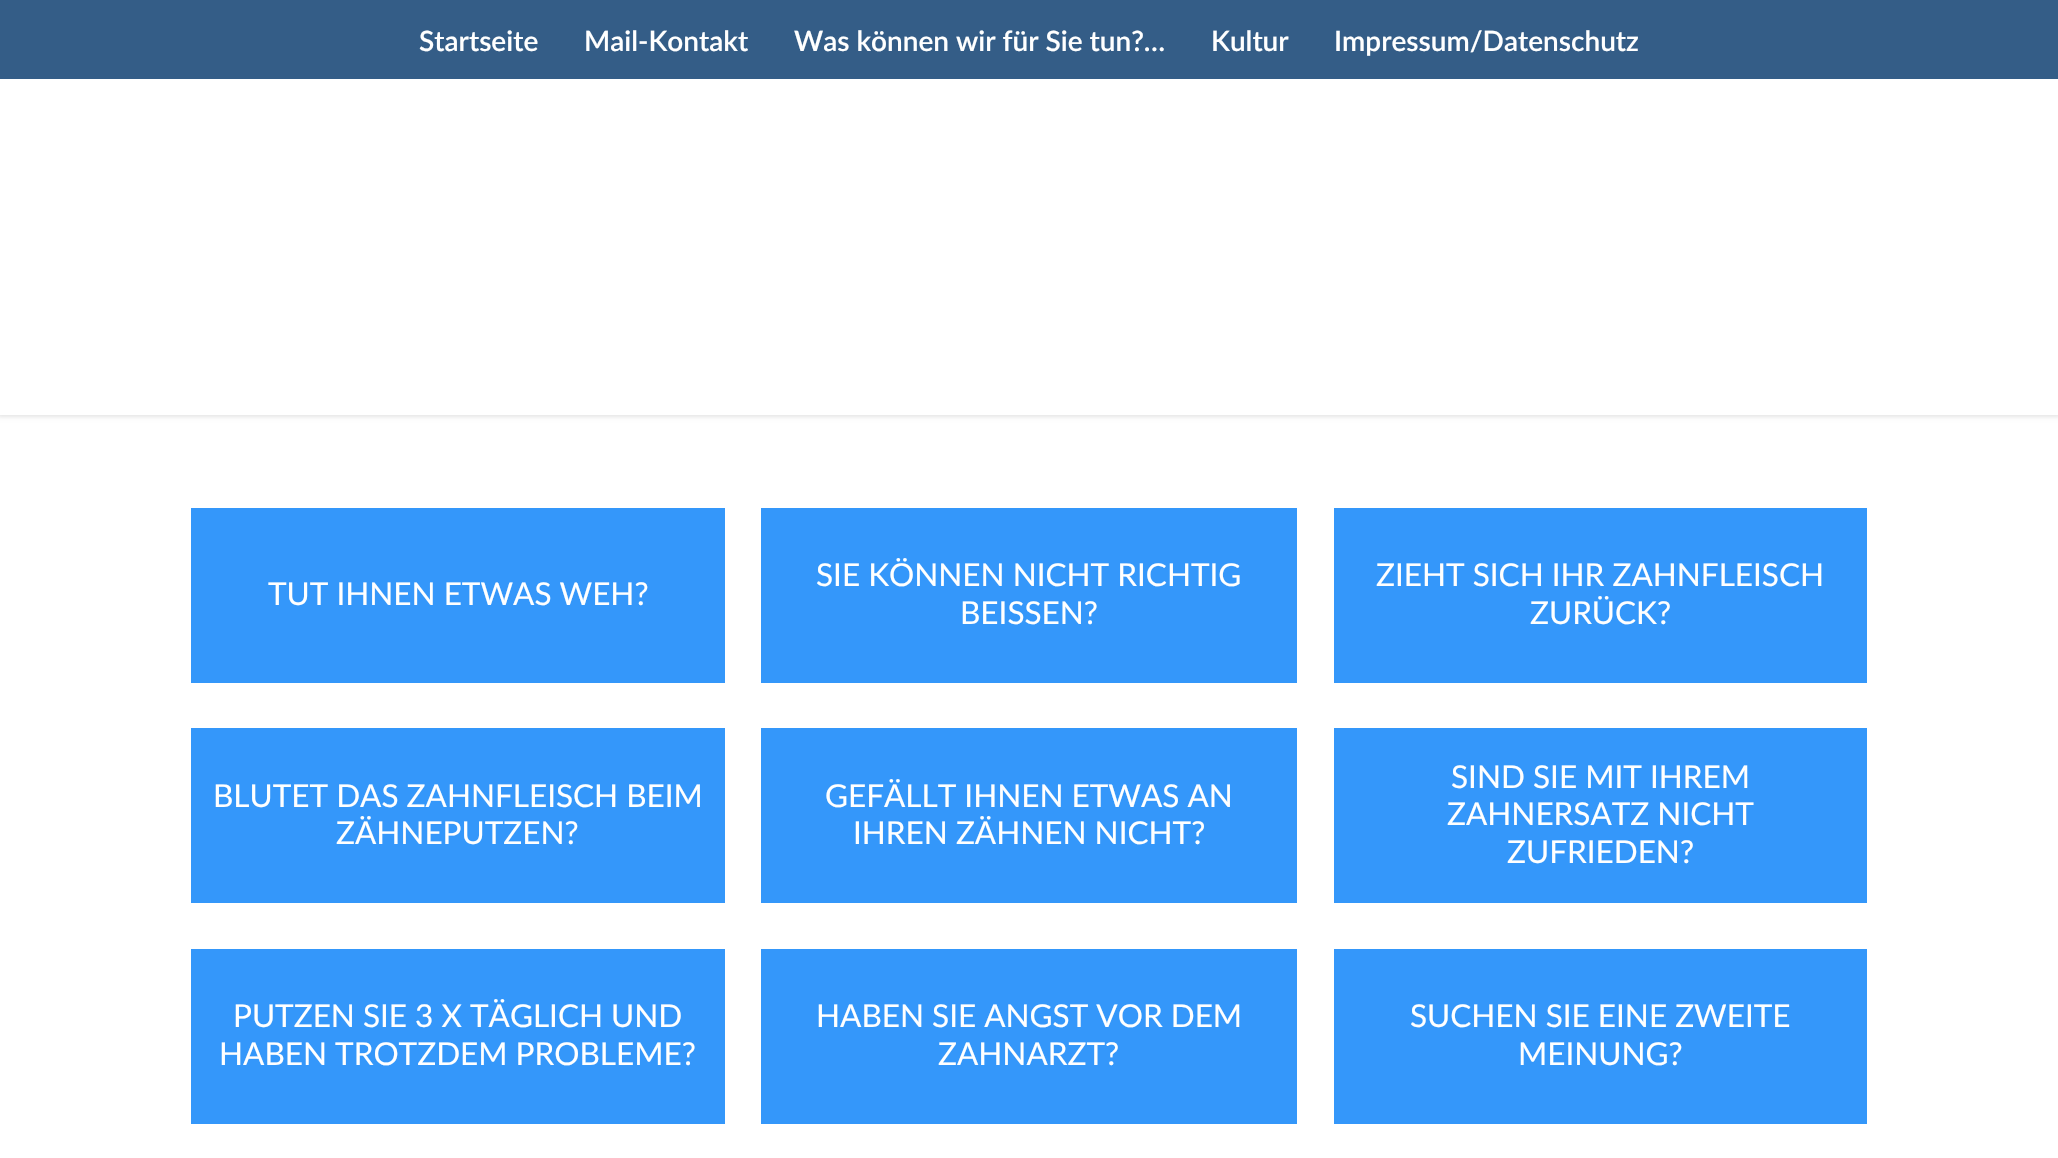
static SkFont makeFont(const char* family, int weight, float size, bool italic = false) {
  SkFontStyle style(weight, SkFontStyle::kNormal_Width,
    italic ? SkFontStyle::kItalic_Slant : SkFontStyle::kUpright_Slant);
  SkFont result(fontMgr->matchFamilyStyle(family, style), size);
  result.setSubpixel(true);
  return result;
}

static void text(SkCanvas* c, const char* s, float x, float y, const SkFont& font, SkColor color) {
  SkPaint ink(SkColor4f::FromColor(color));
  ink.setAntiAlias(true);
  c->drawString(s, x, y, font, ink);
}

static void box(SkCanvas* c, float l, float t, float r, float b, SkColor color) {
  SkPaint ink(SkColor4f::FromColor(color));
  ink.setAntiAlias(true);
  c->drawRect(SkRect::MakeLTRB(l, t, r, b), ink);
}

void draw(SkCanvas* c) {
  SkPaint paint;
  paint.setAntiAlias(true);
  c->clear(0xffffffff);
  paint.setColor(0x1a000000);
  paint.setMaskFilter(SkMaskFilter::MakeBlur(kNormal_SkBlurStyle, 2));
  c->drawRect(SkRect::MakeLTRB(-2, 28, 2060, 417), paint);
  paint.setMaskFilter(nullptr);
  box(c, 0, 0, 2058, 79, 0xff345d87);
  SkFont face1 = makeFont("Lato", 600, 28);
  text(c, "Startseite", 419, 51, face1, 0xffffffff);
  text(c, "Mail-Kontakt", 584, 51, face1, 0xffffffff);
  text(c, "Was können wir für Sie tun?…", 794, 51, face1, 0xffffffff);
  text(c, "Kultur", 1211, 51, face1, 0xffffffff);
  text(c, "Impressum/Datenschutz", 1334, 51, face1, 0xffffffff);
  box(c, 0, 79, 2058, 415, 0xffffffff);
  box(c, 191, 508, 725, 683, 0xff3497fa);
  SkFont face2 = makeFont("Lato", 400, 31.5f);
  text(c, "TUT IHNEN ETWAS WEH?", 268, 605, face2, 0xffffffff);
  box(c, 761, 508, 1297, 683, 0xff3497fa);
  text(c, "SIE KÖNNEN NICHT RICHTIG", 816, 586, face2, 0xffffffff);
  text(c, "BEISSEN?", 960, 624, face2, 0xffffffff);
  box(c, 1334, 508, 1867, 683, 0xff3497fa);
  text(c, "ZIEHT SICH IHR ZAHNFLEISCH", 1376, 586, face2, 0xffffffff);
  text(c, "ZURÜCK?", 1530, 624, face2, 0xffffffff);
  box(c, 191, 728, 725, 903, 0xff3497fa);
  text(c, "BLUTET DAS ZAHNFLEISCH BEIM", 213, 807, face2, 0xffffffff);
  text(c, "ZÄHNEPUTZEN?", 336, 844, face2, 0xffffffff);
  box(c, 761, 728, 1297, 903, 0xff3497fa);
  text(c, "GEFÄLLT IHNEN ETWAS AN", 825, 807, face2, 0xffffffff);
  text(c, "IHREN ZÄHNEN NICHT?", 853, 844, face2, 0xffffffff);
  box(c, 1334, 728, 1867, 903, 0xff3497fa);
  text(c, "SIND SIE MIT IHREM", 1451, 788, face2, 0xffffffff);
  text(c, "ZAHNERSATZ NICHT", 1447, 825, face2, 0xffffffff);
  text(c, "ZUFRIEDEN?", 1507, 863, face2, 0xffffffff);
  box(c, 191, 949, 725, 1124, 0xff3497fa);
  text(c, "PUTZEN SIE 3 X TÄGLICH UND", 233, 1027, face2, 0xffffffff);
  text(c, "HABEN TROTZDEM PROBLEME?", 219, 1065, face2, 0xffffffff);
  box(c, 761, 949, 1297, 1124, 0xff3497fa);
  text(c, "HABEN SIE ANGST VOR DEM", 816, 1027, face2, 0xffffffff);
  text(c, "ZAHNARZT?", 938, 1065, face2, 0xffffffff);
  box(c, 1334, 949, 1867, 1124, 0xff3497fa);
  text(c, "SUCHEN SIE EINE ZWEITE", 1410, 1027, face2, 0xffffffff);
  text(c, "MEINUNG?", 1518, 1065, face2, 0xffffffff);
}
